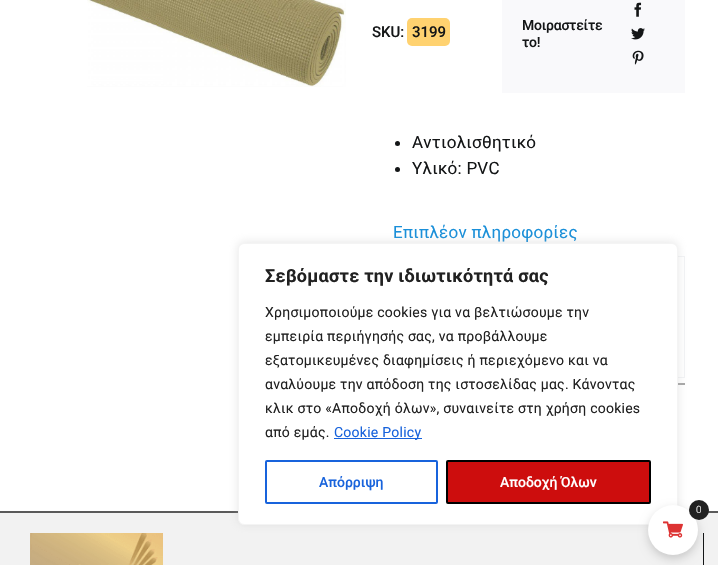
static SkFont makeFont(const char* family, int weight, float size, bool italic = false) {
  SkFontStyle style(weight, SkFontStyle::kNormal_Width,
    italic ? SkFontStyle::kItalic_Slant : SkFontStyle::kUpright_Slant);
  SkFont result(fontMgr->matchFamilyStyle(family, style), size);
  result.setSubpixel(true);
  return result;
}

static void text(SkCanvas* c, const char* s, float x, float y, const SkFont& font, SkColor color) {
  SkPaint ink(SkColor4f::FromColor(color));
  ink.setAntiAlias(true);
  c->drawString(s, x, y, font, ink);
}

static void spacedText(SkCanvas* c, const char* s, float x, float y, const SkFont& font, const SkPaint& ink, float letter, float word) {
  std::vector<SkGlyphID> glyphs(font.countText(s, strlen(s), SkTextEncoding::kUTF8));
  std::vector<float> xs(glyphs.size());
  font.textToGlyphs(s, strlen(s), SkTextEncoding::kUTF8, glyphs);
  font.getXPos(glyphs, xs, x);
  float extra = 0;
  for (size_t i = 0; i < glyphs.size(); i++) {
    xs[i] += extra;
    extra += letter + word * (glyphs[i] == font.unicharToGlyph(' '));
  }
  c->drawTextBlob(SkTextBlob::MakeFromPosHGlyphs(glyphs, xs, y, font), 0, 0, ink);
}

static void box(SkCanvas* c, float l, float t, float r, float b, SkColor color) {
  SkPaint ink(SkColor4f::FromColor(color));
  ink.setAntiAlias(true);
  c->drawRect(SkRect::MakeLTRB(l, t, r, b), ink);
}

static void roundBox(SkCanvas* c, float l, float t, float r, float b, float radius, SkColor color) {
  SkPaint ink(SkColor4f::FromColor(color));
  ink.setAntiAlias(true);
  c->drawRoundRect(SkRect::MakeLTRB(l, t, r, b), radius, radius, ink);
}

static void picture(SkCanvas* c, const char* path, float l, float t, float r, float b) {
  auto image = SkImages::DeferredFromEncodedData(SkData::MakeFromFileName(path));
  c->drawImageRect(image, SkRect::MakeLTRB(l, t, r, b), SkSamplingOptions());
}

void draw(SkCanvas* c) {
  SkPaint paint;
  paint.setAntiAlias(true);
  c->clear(0xffffffff);
  picture(c, "img_01.png", 87, 0, 346, 87);
  SkFont face1 = makeFont("Roboto", 500, 15);
  text(c, "SKU:", 372, 37, face1, 0xff141617);
  roundBox(c, 407, 18, 450, 46, 5, 0xffffd270);
  text(c, "3199", 412, 37, face1, 0xff141617);
  box(c, 502, 0, 685, 93, 0xfff9f9fb);
  SkFont face2 = makeFont("Roboto", 500, 14);
  paint.setColor(0xff141617);
  spacedText(c, "Μοιραστείτε", 522, 30, face2, paint, -0.25f, 0);
  spacedText(c, "το!", 522, 47, face2, paint, -0.25f, 0);
  picture(c, "img_02.png", 634, 2, 642, 17);
  picture(c, "img_03.png", 631, 28, 645, 40);
  picture(c, "img_04.png", 632, 50, 644, 65);
  c->drawCircle(397.5f, 143.5f, 2.5f, paint);
  SkFont face3 = makeFont("Roboto", 400, 17);
  spacedText(c, "Αντιολισθητικό", 412, 148, face3, paint, 0.25f, 0);
  c->drawCircle(397.5f, 169.5f, 2.5f, paint);
  spacedText(c, "Υλικό: PVC", 412, 174, face3, paint, 0.25f, 0);
  paint.setColor(0xff198fd9);
  spacedText(c, "Επιπλέον πληροφορίες", 393, 238, face3, paint, 0.25f, 0);
  paint.setStyle(SkPaint::kStroke_Style);
  paint.setStrokeWidth(1);
  paint.setColor(0xfff2f3f5);
  c->drawRect(SkRect::MakeLTRB(372.5f, 256.5f, 684.5f, 377.5f), paint);
  box(c, 678, 383, 685, 385, 0xffa8a8a8);
  box(c, 0, 513, 718, 565, 0xfff2f2f2);
  box(c, 0, 511, 718, 513, 0xff5a5a5a);
  box(c, 703, 533, 704, 565, 0xff141617);
  picture(c, "img_05.png", 30, 533, 163, 565);
  paint.setStyle(SkPaint::kFill_Style);
  paint.setColor(0x4dacabab);
  paint.setMaskFilter(SkMaskFilter::MakeBlur(kNormal_SkBlurStyle, 5));
  c->drawRoundRect(SkRect::MakeLTRB(238, 242, 678, 524), 6, 6, paint);
  paint.setMaskFilter(nullptr);
  paint.setColor(0xffffffff);
  c->drawRoundRect(SkRect::MakeLTRB(238.5f, 243.5f, 677.5f, 524.5f), 5.5f, 5.5f, paint);
  paint.setStyle(SkPaint::kStroke_Style);
  paint.setColor(0xfff4f4f4);
  c->drawRoundRect(SkRect::MakeLTRB(238.5f, 243.5f, 677.5f, 524.5f), 5.5f, 5.5f, paint);
  SkFont face4 = makeFont("Roboto", 700, 18);
  paint.setStyle(SkPaint::kFill_Style);
  paint.setColor(0xff212121);
  spacedText(c, "Σεβόμαστε την ιδιωτικότητά σας", 265, 282, face4, paint, 0.25f, 0);
  SkFont face5 = makeFont("Roboto", 400, 14);
  spacedText(c, "Χρησιμοποιούμε cookies για να βελτιώσουμε την", 265, 317, face5, paint, 0.25f, 0);
  spacedText(c, "εμπειρία περιήγησής σας, να προβάλλουμε", 265, 341, face5, paint, 0.25f, 0);
  spacedText(c, "εξατομικευμένες διαφημίσεις ή περιεχόμενο και να", 265, 365, face5, paint, 0.25f, 0);
  spacedText(c, "αναλύουμε την απόδοση της ιστοσελίδας μας. Κάνοντας", 265, 389, face5, paint, 0.25f, 0);
  spacedText(c, "κλικ στο «Αποδοχή όλων», συναινείτε στη χρήση cookies", 265, 413, face5, paint, 0.25f, 0);
  spacedText(c, "από εμάς.", 265, 437, face5, paint, 0.25f, 0);
  box(c, 334, 438, 422, 439, 0xff1863dc);
  paint.setColor(0xff1863dc);
  spacedText(c, "Cookie Policy", 334, 437, face5, paint, 0.25f, 0);
  paint.setStyle(SkPaint::kStroke_Style);
  paint.setStrokeWidth(2);
  c->drawRoundRect(SkRect::MakeLTRB(266, 461, 437, 503), 1, 1, paint);
  text(c, "Απόρριψη", 319, 487, face2, 0xff1863dc);
  paint.setStyle(SkPaint::kFill_Style);
  paint.setColor(0xffcd0d0d);
  c->drawRoundRect(SkRect::MakeLTRB(447, 461, 650, 503), 1, 1, paint);
  paint.setStyle(SkPaint::kStroke_Style);
  paint.setColor(0xff000000);
  c->drawRoundRect(SkRect::MakeLTRB(447, 461, 650, 503), 1, 1, paint);
  text(c, "Αποδοχή Όλων", 500, 487, face2, 0xffffffff);
  paint.setStyle(SkPaint::kFill_Style);
  paint.setColor(0x2b000000);
  paint.setMaskFilter(SkMaskFilter::MakeBlur(kNormal_SkBlurStyle, 5));
  c->drawRoundRect(SkRect::MakeLTRB(648, 509, 698, 559), 25, 25, paint);
  paint.setMaskFilter(nullptr);
  paint.setColor(0xffffffff);
  c->drawCircle(673, 530, 25, paint);
  paint.setColor(0xff212121);
  c->drawCircle(699, 510, 10, paint);
  SkFont face6 = makeFont("Roboto", 300, 10);
  paint.setColor(0xffffffff);
  spacedText(c, "0", 696, 513, face6, paint, 0.25f, 0);
  picture(c, "img_06.png", 663, 521, 683, 538);
}
